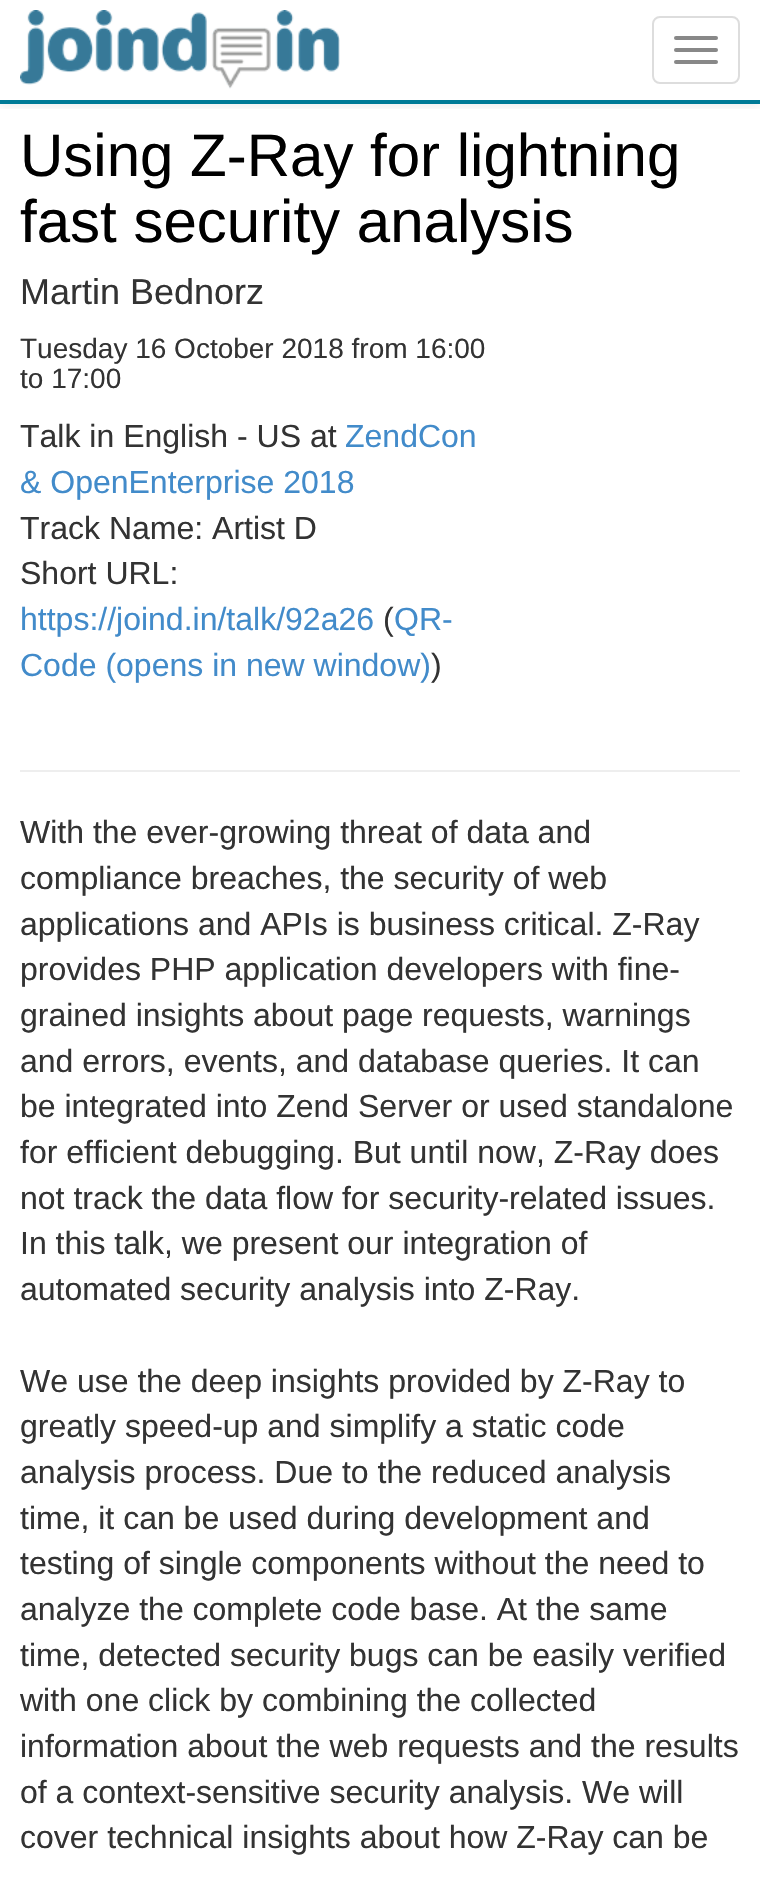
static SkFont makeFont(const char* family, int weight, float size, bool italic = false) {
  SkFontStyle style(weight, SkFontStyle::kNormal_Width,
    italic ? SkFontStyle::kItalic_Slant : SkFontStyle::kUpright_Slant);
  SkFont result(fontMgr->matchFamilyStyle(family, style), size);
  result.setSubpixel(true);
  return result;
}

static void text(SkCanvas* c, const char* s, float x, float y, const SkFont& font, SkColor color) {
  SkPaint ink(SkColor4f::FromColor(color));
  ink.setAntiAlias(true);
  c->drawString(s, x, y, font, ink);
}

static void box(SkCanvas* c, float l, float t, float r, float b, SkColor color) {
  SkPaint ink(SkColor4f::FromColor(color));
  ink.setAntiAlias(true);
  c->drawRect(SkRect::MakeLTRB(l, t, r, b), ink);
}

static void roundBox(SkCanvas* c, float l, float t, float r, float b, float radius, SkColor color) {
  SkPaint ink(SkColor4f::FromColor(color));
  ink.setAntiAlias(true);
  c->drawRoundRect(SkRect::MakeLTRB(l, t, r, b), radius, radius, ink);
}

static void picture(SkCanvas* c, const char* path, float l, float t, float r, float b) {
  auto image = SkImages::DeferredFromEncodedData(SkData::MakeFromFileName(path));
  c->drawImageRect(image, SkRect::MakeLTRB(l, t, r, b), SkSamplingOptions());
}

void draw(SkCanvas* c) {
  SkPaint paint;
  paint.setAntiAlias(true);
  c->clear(0xffffffff);
  c->save();
  c->clipRect(SkRect::MakeLTRB(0, 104, 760, 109));
  paint.setColor(0x12000000);
  paint.setMaskFilter(SkMaskFilter::MakeBlur(kNormal_SkBlurStyle, 5));
  c->drawRect(SkRect::MakeLTRB(0, 2, 760, 106), paint);
  paint.setMaskFilter(nullptr);
  c->restore();
  box(c, 0, 100, 760, 104, 0xff007b97);
  picture(c, "img_01.png", 20, 10, 340, 89);
  paint.setStyle(SkPaint::kStroke_Style);
  paint.setStrokeWidth(2);
  paint.setColor(0xffdddddd);
  c->drawRoundRect(SkRect::MakeLTRB(653, 17, 739, 83), 7, 7, paint);
  roundBox(c, 674, 36, 718, 40, 2, 0xff888888);
  roundBox(c, 674, 48, 718, 52, 2, 0xff888888);
  roundBox(c, 674, 60, 718, 64, 2, 0xff888888);
  box(c, 20, 770, 740, 772, 0xffeeeeee);
  SkFont face1 = makeFont("Liberation Sans", 400, 60);
  text(c, "Using Z-Ray for lightning", 20, 176, face1, 0xff000000);
  text(c, "fast security analysis", 20, 242, face1, 0xff000000);
  SkFont face2 = makeFont("Liberation Sans", 400, 36);
  text(c, "Martin Bednorz", 20, 304, face2, 0xff333333);
  SkFont face3 = makeFont("Liberation Sans", 400, 28);
  text(c, "Tuesday 16 October 2018 from 16:00", 20, 358, face3, 0xff333333);
  text(c, "to 17:00", 20, 388, face3, 0xff333333);
  SkFont face4 = makeFont("Liberation Sans", 400, 32);
  text(c, "Talk in English - US at", 20, 447, face4, 0xff333333);
  text(c, "ZendCon", 345, 447, face4, 0xff428bca);
  text(c, "& OpenEnterprise 2018", 20, 493, face4, 0xff428bca);
  text(c, "Track Name: Artist D", 20, 539, face4, 0xff333333);
  text(c, "Short URL:", 20, 584, face4, 0xff333333);
  text(c, "https://joind.in/talk/92a26", 20, 630, face4, 0xff428bca);
  text(c, "(", 383, 630, face4, 0xff333333);
  text(c, "QR-", 394, 630, face4, 0xff428bca);
  text(c, "Code (opens in new window)", 20, 676, face4, 0xff428bca);
  text(c, ")", 431, 676, face4, 0xff333333);
  text(c, "With the ever-growing threat of data and", 20, 843, face4, 0xff333333);
  text(c, "compliance breaches, the security of web", 20, 889, face4, 0xff333333);
  text(c, "applications and APIs is business critical. Z-Ray", 20, 935, face4, 0xff333333);
  text(c, "provides PHP application developers with fine-", 20, 980, face4, 0xff333333);
  text(c, "grained insights about page requests, warnings", 20, 1026, face4, 0xff333333);
  text(c, "and errors, events, and database queries. It can", 20, 1072, face4, 0xff333333);
  text(c, "be integrated into Zend Server or used standalone", 20, 1117, face4, 0xff333333);
  text(c, "for efficient debugging. But until now, Z-Ray does", 20, 1163, face4, 0xff333333);
  text(c, "not track the data flow for security-related issues.", 20, 1209, face4, 0xff333333);
  text(c, "In this talk, we present our integration of", 20, 1254, face4, 0xff333333);
  text(c, "automated security analysis into Z-Ray.", 20, 1300, face4, 0xff333333);
  text(c, "We use the deep insights provided by Z-Ray to", 20, 1392, face4, 0xff333333);
  text(c, "greatly speed-up and simplify a static code", 20, 1437, face4, 0xff333333);
  text(c, "analysis process. Due to the reduced analysis", 20, 1483, face4, 0xff333333);
  text(c, "time, it can be used during development and", 20, 1529, face4, 0xff333333);
  text(c, "testing of single components without the need to", 20, 1574, face4, 0xff333333);
  text(c, "analyze the complete code base. At the same", 20, 1620, face4, 0xff333333);
  text(c, "time, detected security bugs can be easily verified", 20, 1666, face4, 0xff333333);
  text(c, "with one click by combining the collected", 20, 1711, face4, 0xff333333);
  text(c, "information about the web requests and the results", 20, 1757, face4, 0xff333333);
  text(c, "of a context-sensitive security analysis. We will", 20, 1803, face4, 0xff333333);
  text(c, "cover technical insights about how Z-Ray can be", 20, 1848, face4, 0xff333333);
}
